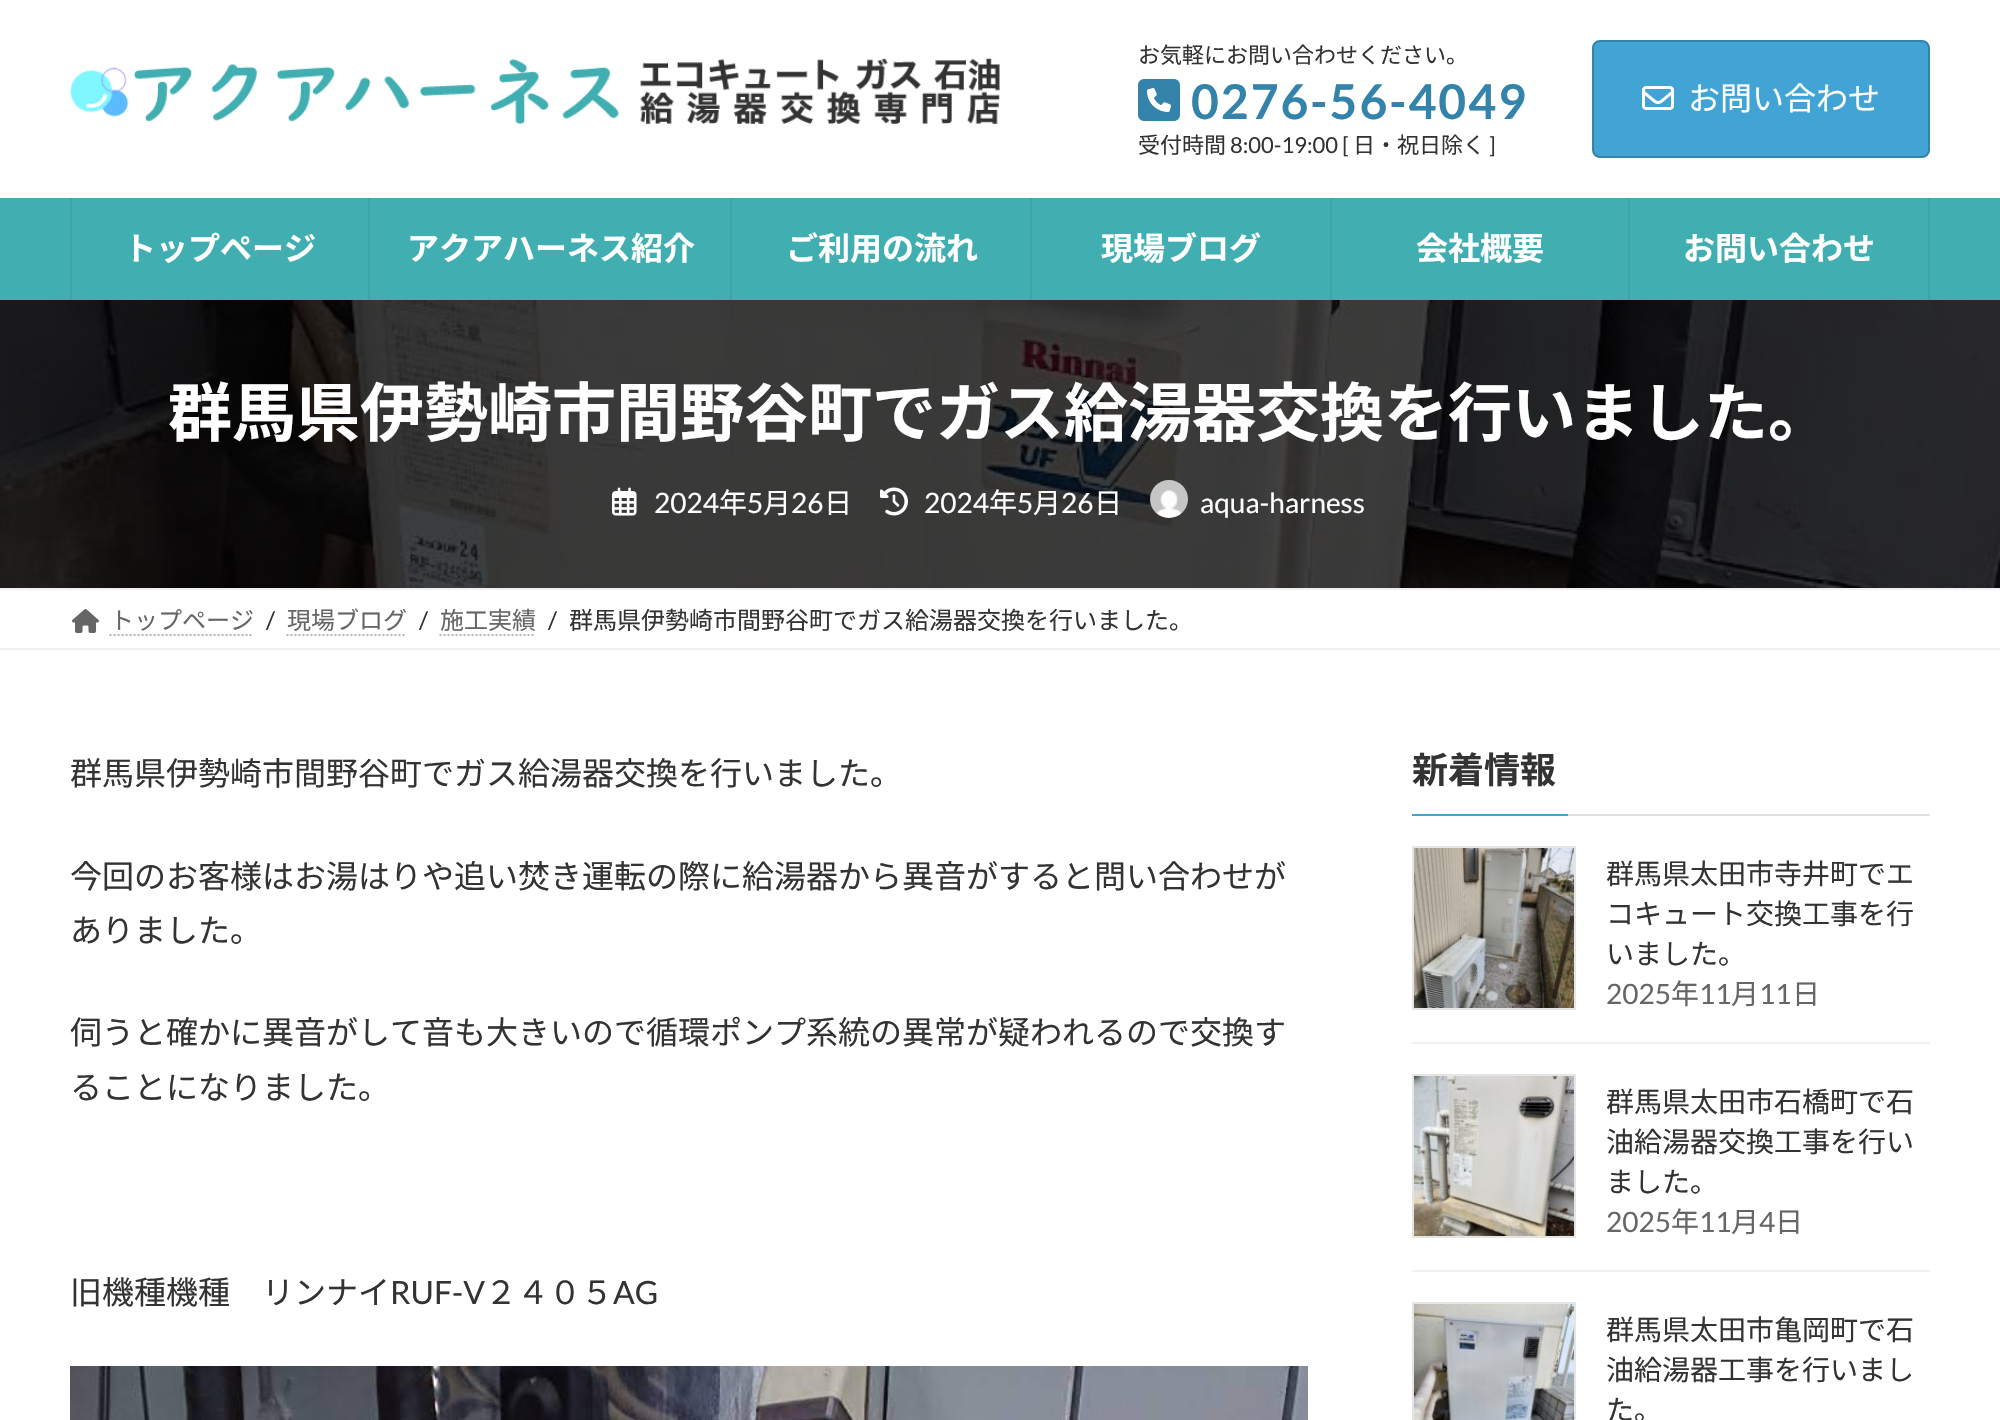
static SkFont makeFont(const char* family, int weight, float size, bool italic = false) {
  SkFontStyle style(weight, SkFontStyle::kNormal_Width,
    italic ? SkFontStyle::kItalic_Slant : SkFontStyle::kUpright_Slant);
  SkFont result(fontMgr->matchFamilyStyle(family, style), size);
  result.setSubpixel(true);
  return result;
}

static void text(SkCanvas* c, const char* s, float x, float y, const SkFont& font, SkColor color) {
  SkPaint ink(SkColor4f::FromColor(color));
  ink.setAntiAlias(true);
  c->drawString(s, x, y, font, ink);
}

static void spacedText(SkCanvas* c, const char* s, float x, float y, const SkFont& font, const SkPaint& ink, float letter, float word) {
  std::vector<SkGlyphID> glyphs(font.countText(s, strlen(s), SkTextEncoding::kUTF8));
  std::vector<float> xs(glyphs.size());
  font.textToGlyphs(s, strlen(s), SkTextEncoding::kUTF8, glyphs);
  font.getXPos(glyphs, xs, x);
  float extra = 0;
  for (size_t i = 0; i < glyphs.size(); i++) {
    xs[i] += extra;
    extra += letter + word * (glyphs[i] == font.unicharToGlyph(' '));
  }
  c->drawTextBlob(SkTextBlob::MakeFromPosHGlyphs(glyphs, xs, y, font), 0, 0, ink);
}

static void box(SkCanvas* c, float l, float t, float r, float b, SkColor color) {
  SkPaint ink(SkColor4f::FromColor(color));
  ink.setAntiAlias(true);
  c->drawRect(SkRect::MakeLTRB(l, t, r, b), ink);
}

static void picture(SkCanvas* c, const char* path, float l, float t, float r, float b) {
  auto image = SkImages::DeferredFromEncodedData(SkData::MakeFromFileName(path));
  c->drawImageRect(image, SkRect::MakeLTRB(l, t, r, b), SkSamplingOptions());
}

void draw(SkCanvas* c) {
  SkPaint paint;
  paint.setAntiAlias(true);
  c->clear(0xffffffff);
  picture(c, "img_01.png", 70, 58, 1000, 124);
  SkFont face1 = makeFont("Noto Sans JP", 400, 22);
  text(c, "お気軽にお問い合わせください。", 1138, 63, face1, 0xff333333);
  picture(c, "img_02.png", 1138, 79, 1180, 121);
  SkFont face2 = makeFont("Lato", 700, 48);
  paint.setColor(0xff3483aa);
  spacedText(c, "0276-56-4049", 1191, 119, face2, paint, 2, 0);
  text(c, "受付時間", 1138, 153, face1, 0xff333333);
  SkFont face3 = makeFont("Lato", 400, 22);
  text(c, "8:00-19:00 [", 1230, 153, face3, 0xff333333);
  text(c, "日・祝日除く", 1353, 153, face1, 0xff333333);
  text(c, "]", 1489, 153, face3, 0xff333333);
  paint.setColor(0xff41a4d4);
  c->drawRoundRect(SkRect::MakeLTRB(1593, 41, 1929, 157), 7, 7, paint);
  paint.setStyle(SkPaint::kStroke_Style);
  paint.setStrokeWidth(2);
  paint.setColor(0xff3483aa);
  c->drawRoundRect(SkRect::MakeLTRB(1593, 41, 1929, 157), 7, 7, paint);
  picture(c, "img_03.png", 1642, 86, 1674, 110);
  SkFont face4 = makeFont("Noto Sans JP", 400, 32);
  text(c, "お問い合わせ", 1688, 110, face4, 0xffffffff);
  box(c, 0, 198, 2000, 300, 0xff41aeb1);
  box(c, 368, 198, 370, 300, 0xff3da4a6);
  box(c, 70, 198, 72, 300, 0xff3da4a6);
  SkFont face5 = makeFont("Noto Sans JP", 700, 32);
  text(c, "トップページ", 124, 260, face5, 0xffffffff);
  box(c, 730, 198, 732, 300, 0xff3da4a6);
  text(c, "アクアハーネス紹介", 407, 260, face5, 0xffffffff);
  box(c, 1030, 198, 1032, 300, 0xff3da4a6);
  text(c, "ご利用の流れ", 786, 260, face5, 0xffffffff);
  box(c, 1330, 198, 1332, 300, 0xff3da4a6);
  text(c, "現場ブログ", 1101, 260, face5, 0xffffffff);
  box(c, 1628, 198, 1630, 300, 0xff3da4a6);
  text(c, "会社概要", 1416, 260, face5, 0xffffffff);
  box(c, 1928, 198, 1930, 300, 0xff3da4a6);
  text(c, "お問い合わせ", 1683, 260, face5, 0xffffffff);
  picture(c, "img_04.png", 0, 300, 2000, 588);
  SkFont face6 = makeFont("Noto Sans JP", 700, 64);
  text(c, "群馬県伊勢崎市間野谷町でガス給湯器交換を行いました。", 168, 436, face6, 0xffffffff);
  picture(c, "img_05.png", 612, 487, 637, 516);
  SkFont face7 = makeFont("Lato", 400, 28);
  text(c, "2024", 654, 513, face7, 0xffffffff);
  SkFont face8 = makeFont("Noto Sans JP", 400, 28);
  text(c, "年", 719, 513, face8, 0xffffffff);
  text(c, "5", 747, 513, face7, 0xffffffff);
  text(c, "月", 763, 513, face8, 0xffffffff);
  text(c, "26", 791, 513, face7, 0xffffffff);
  text(c, "日", 824, 513, face8, 0xffffffff);
  picture(c, "img_06.png", 880, 487, 908, 516);
  text(c, "2024", 924, 513, face7, 0xffffffff);
  text(c, "年", 989, 513, face8, 0xffffffff);
  text(c, "5", 1017, 513, face7, 0xffffffff);
  text(c, "月", 1033, 513, face8, 0xffffffff);
  text(c, "26", 1061, 513, face7, 0xffffffff);
  text(c, "日", 1094, 513, face8, 0xffffffff);
  picture(c, "img_07.png", 1150, 480, 1188, 518);
  text(c, "aqua-harness", 1200, 513, face7, 0xffffffff);
  box(c, 0, 588, 2000, 590, 0xfff0f0f0);
  box(c, 0, 648, 2000, 650, 0xfff0f0f0);
  picture(c, "img_08.png", 72, 609, 99, 633);
  SkFont face9 = makeFont("Noto Sans JP", 400, 24);
  text(c, "トップページ", 110, 629, face9, 0xff666666);
  paint.setColor(0xffb3b3b3);
  paint.setPathEffect(SkDashPathEffect::Make({{2, 2}}, 0));
  c->drawPath(SkPathBuilder().moveTo(109.5f, 635).lineTo(253.5f, 635).detach(), paint);
  paint.setPathEffect(nullptr);
  SkFont face10 = makeFont("Lato", 400, 24);
  text(c, "/", 266, 629, face10, 0xff333333);
  text(c, "現場ブログ", 287, 629, face9, 0xff666666);
  paint.setPathEffect(SkDashPathEffect::Make({{2, 2}}, 0));
  c->drawPath(SkPathBuilder().moveTo(286.5f, 635).lineTo(406.5f, 635).detach(), paint);
  paint.setPathEffect(nullptr);
  text(c, "/", 419, 629, face10, 0xff333333);
  text(c, "施工実績", 440, 629, face9, 0xff666666);
  paint.setPathEffect(SkDashPathEffect::Make({{2, 2}}, 0));
  c->drawPath(SkPathBuilder().moveTo(439.5f, 635).lineTo(535.5f, 635).detach(), paint);
  paint.setPathEffect(nullptr);
  text(c, "/", 548, 629, face10, 0xff333333);
  text(c, "群馬県伊勢崎市間野谷町でガス給湯器交換を行いました。", 569, 629, face9, 0xff333333);
  text(c, "群馬県伊勢崎市間野谷町でガス給湯器交換を行いました。", 70, 785, face4, 0xff333333);
  text(c, "今回のお客様はお湯はりや追い焚き運転の際に給湯器から異音がすると問い合わせが", 70, 888, face4, 0xff333333);
  text(c, "ありました。", 70, 942, face4, 0xff333333);
  text(c, "伺うと確かに異音がして音も大きいので循環ポンプ系統の異常が疑われるので交換す", 70, 1044, face4, 0xff333333);
  text(c, "ることになりました。", 70, 1099, face4, 0xff333333);
  text(c, "旧機種機種　リンナイ", 70, 1304, face4, 0xff333333);
  SkFont face11 = makeFont("Lato", 400, 32);
  text(c, "RUF-V", 390, 1304, face11, 0xff333333);
  text(c, "２４０５", 485, 1304, face4, 0xff333333);
  text(c, "AG", 613, 1304, face11, 0xff333333);
  picture(c, "img_09.png", 70, 1366, 1308, 1420);
  box(c, 1568, 814, 1930, 816, 0xffe0e0e0);
  SkFont face12 = makeFont("Noto Sans JP", 700, 36);
  text(c, "新着情報", 1412, 783, face12, 0xff333333);
  box(c, 1412, 814, 1568, 816, 0xff41a4d4);
  box(c, 1412, 1042, 1930, 1044, 0xfff0f0f0);
  paint.setColor(0xffe5e5e5);
  c->drawRect(SkRect::MakeLTRB(1413, 847, 1575, 1009), paint);
  picture(c, "img_10.png", 1414, 848, 1574, 1008);
  text(c, "群馬県太田市寺井町でエ", 1606, 884, face8, 0xff333333);
  text(c, "コキュート交換工事を行", 1606, 924, face8, 0xff333333);
  text(c, "いました。", 1606, 964, face8, 0xff333333);
  text(c, "2025", 1606, 1004, face7, 0xff666666);
  text(c, "年", 1671, 1004, face8, 0xff666666);
  text(c, "11", 1699, 1004, face7, 0xff666666);
  text(c, "月", 1731, 1004, face8, 0xff666666);
  text(c, "11", 1759, 1004, face7, 0xff666666);
  text(c, "日", 1792, 1004, face8, 0xff666666);
  box(c, 1412, 1270, 1930, 1272, 0xfff0f0f0);
  c->drawRect(SkRect::MakeLTRB(1413, 1075, 1575, 1237), paint);
  picture(c, "img_11.png", 1414, 1076, 1574, 1236);
  text(c, "群馬県太田市石橋町で石", 1606, 1112, face8, 0xff333333);
  text(c, "油給湯器交換工事を行い", 1606, 1152, face8, 0xff333333);
  text(c, "ました。", 1606, 1192, face8, 0xff333333);
  text(c, "2025", 1606, 1232, face7, 0xff666666);
  text(c, "年", 1671, 1232, face8, 0xff666666);
  text(c, "11", 1699, 1232, face7, 0xff666666);
  text(c, "月", 1731, 1232, face8, 0xff666666);
  text(c, "4", 1759, 1232, face7, 0xff666666);
  text(c, "日", 1775, 1232, face8, 0xff666666);
  c->drawRect(SkRect::MakeLTRB(1413, 1303, 1575, 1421), paint);
  picture(c, "img_12.png", 1414, 1304, 1574, 1420);
  text(c, "群馬県太田市亀岡町で石", 1606, 1340, face8, 0xff333333);
  text(c, "油給湯器工事を行いまし", 1606, 1380, face8, 0xff333333);
  text(c, "た。", 1606, 1420, face8, 0xff333333);
}
